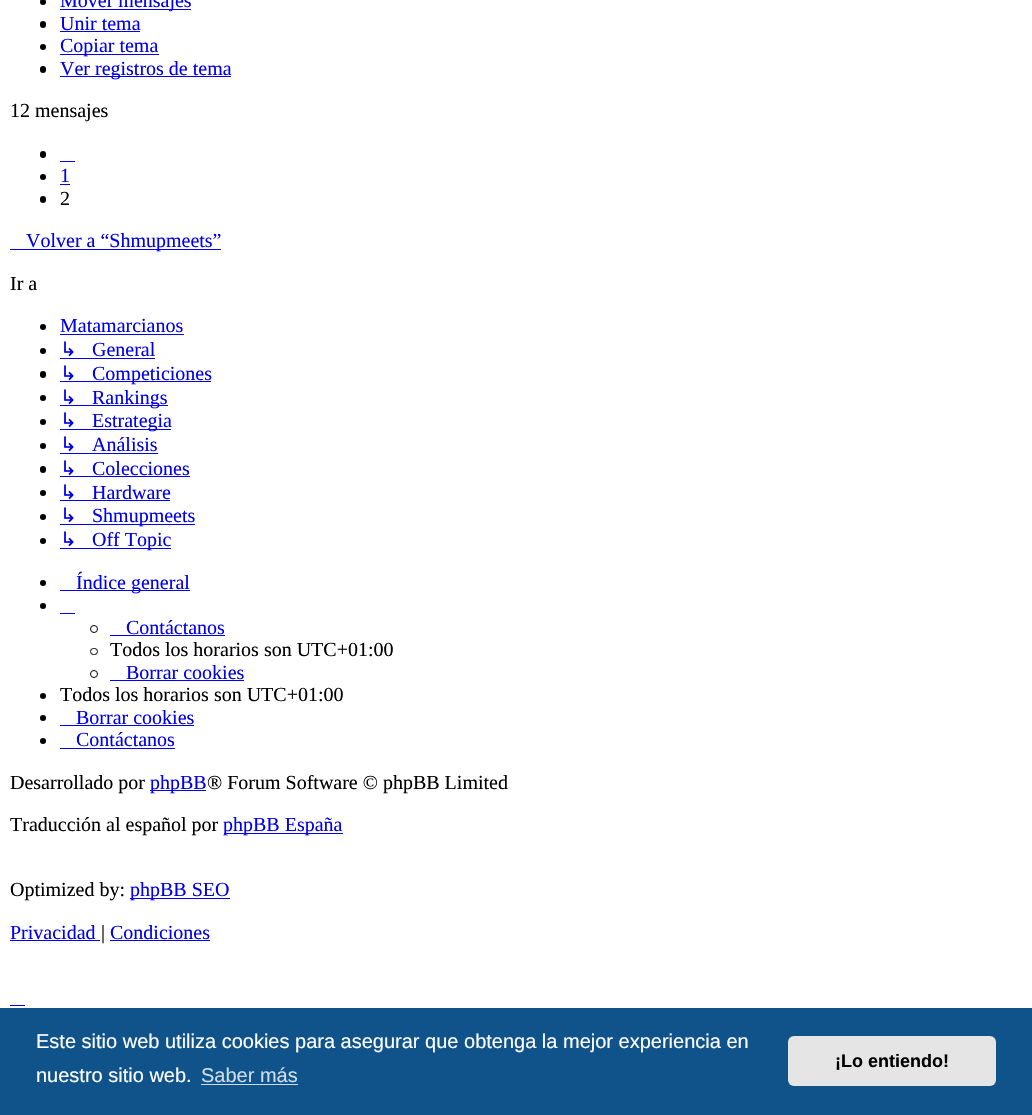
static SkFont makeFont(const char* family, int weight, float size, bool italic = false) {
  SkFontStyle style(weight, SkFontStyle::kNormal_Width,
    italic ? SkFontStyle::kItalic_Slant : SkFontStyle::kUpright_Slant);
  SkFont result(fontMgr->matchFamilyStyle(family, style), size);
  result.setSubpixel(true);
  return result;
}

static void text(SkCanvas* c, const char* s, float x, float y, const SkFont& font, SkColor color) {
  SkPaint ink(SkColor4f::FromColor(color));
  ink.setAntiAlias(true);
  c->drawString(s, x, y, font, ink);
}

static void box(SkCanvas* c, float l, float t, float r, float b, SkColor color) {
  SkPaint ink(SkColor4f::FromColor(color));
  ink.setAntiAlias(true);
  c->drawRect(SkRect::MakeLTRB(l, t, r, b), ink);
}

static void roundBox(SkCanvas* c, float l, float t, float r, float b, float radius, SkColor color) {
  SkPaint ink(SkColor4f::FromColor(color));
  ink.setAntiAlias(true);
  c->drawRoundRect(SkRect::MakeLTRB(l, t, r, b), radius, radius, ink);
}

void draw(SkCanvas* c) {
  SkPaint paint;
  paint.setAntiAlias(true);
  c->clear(0xffffffff);
  paint.setColor(0xff000000);
  c->drawCircle(43, 2, 3, paint);
  box(c, 60, 9, 191, 10, 0xff0000ee);
  SkFont face1 = makeFont("Liberation Serif", 400, 20);
  text(c, "Mover mensajes", 60, 7, face1, 0xff0000ee);
  roundBox(c, 40, 21, 46, 28, 3, 0xff000000);
  text(c, "Unir tema", 60, 30, face1, 0xff0000ee);
  box(c, 60, 31, 140, 32, 0xff0000ee);
  c->drawCircle(43, 47, 3, paint);
  box(c, 60, 54, 159, 55, 0xff0000ee);
  text(c, "Copiar tema", 60, 52, face1, 0xff0000ee);
  roundBox(c, 40, 66, 46, 73, 3, 0xff000000);
  box(c, 60, 76, 231, 77, 0xff0000ee);
  text(c, "Ver registros de tema", 60, 75, face1, 0xff0000ee);
  text(c, "12 mensajes", 10, 117, face1, 0xff000000);
  roundBox(c, 40, 151, 46, 158, 3, 0xff000000);
  box(c, 60, 161, 75, 162, 0xff0000ee);
  c->drawCircle(43, 177, 3, paint);
  text(c, "1", 60, 182, face1, 0xff0000ee);
  box(c, 60, 184, 70, 185, 0xff0000ee);
  roundBox(c, 40, 196, 46, 203, 3, 0xff000000);
  text(c, "2", 60, 205, face1, 0xff000000);
  box(c, 10, 249, 221, 250, 0xff0000ee);
  text(c, "Volver a “Shmupmeets”", 26, 247, face1, 0xff0000ee);
  text(c, "Ir a", 10, 290, face1, 0xff000000);
  c->drawCircle(43, 327, 3, paint);
  text(c, "Matamarcianos", 60, 332, face1, 0xff0000ee);
  box(c, 60, 334, 184, 335, 0xff0000ee);
  c->drawCircle(43, 351, 3, paint);
  SkFont face2 = makeFont("DejaVu Sans", 400, 20);
  text(c, "↳", 60, 356, face2, 0xff0000ee);
  text(c, "General", 92, 356, face1, 0xff0000ee);
  box(c, 60, 358, 155, 359, 0xff0000ee);
  roundBox(c, 40, 371, 46, 378, 3, 0xff000000);
  text(c, "↳", 60, 380, face2, 0xff0000ee);
  box(c, 60, 381, 211, 382, 0xff0000ee);
  text(c, "Competiciones", 92, 380, face1, 0xff0000ee);
  c->drawCircle(43, 398, 3, paint);
  text(c, "↳", 60, 404, face2, 0xff0000ee);
  box(c, 60, 405, 168, 406, 0xff0000ee);
  text(c, "Rankings", 92, 404, face1, 0xff0000ee);
  c->drawCircle(43, 422, 3, paint);
  text(c, "↳", 60, 427, face2, 0xff0000ee);
  box(c, 60, 429, 171, 430, 0xff0000ee);
  text(c, "Estrategia", 92, 427, face1, 0xff0000ee);
  c->drawCircle(43, 446, 3, paint);
  text(c, "↳", 60, 451, face2, 0xff0000ee);
  text(c, "Análisis", 92, 451, face1, 0xff0000ee);
  box(c, 60, 453, 158, 454, 0xff0000ee);
  roundBox(c, 40, 466, 46, 473, 3, 0xff000000);
  text(c, "↳", 60, 475, face2, 0xff0000ee);
  text(c, "Colecciones", 92, 475, face1, 0xff0000ee);
  box(c, 60, 476, 190, 477, 0xff0000ee);
  c->drawCircle(43, 493, 3, paint);
  text(c, "↳", 60, 499, face2, 0xff0000ee);
  text(c, "Hardware", 92, 499, face1, 0xff0000ee);
  box(c, 60, 500, 170, 501, 0xff0000ee);
  c->drawCircle(43, 517, 3, paint);
  text(c, "↳", 60, 522, face2, 0xff0000ee);
  box(c, 60, 524, 195, 525, 0xff0000ee);
  text(c, "Shmupmeets", 92, 522, face1, 0xff0000ee);
  c->drawCircle(43, 541, 3, paint);
  text(c, "↳", 60, 546, face2, 0xff0000ee);
  box(c, 60, 548, 171, 549, 0xff0000ee);
  text(c, "Off Topic", 92, 546, face1, 0xff0000ee);
  c->drawCircle(43, 583, 3, paint);
  box(c, 60, 590, 190, 591, 0xff0000ee);
  text(c, "Índice general", 76, 589, face1, 0xff0000ee);
  c->drawCircle(43, 606, 3, paint);
  box(c, 60, 613, 75, 614, 0xff0000ee);
  paint.setStyle(SkPaint::kStroke_Style);
  paint.setStrokeWidth(1);
  c->drawCircle(94, 629, 3.5f, paint);
  text(c, "Contáctanos", 126, 634, face1, 0xff0000ee);
  box(c, 110, 635, 225, 636, 0xff0000ee);
  c->drawRoundRect(SkRect::MakeLTRB(90.5f, 648.5f, 97.5f, 654.5f), 3, 3, paint);
  text(c, "Todos los horarios son UTC+01:00", 110, 656, face1, 0xff000000);
  c->drawCircle(94, 674, 3.5f, paint);
  text(c, "Borrar cookies", 126, 679, face1, 0xff0000ee);
  box(c, 110, 680, 244, 681, 0xff0000ee);
  paint.setStyle(SkPaint::kFill_Style);
  c->drawCircle(43, 696, 3, paint);
  text(c, "Todos los horarios son UTC+01:00", 60, 701, face1, 0xff000000);
  c->drawCircle(43, 718, 3, paint);
  text(c, "Borrar cookies", 76, 724, face1, 0xff0000ee);
  box(c, 60, 725, 194, 726, 0xff0000ee);
  c->drawCircle(43, 741, 3, paint);
  text(c, "Contáctanos", 76, 746, face1, 0xff0000ee);
  box(c, 60, 748, 175, 749, 0xff0000ee);
  text(c, "Desarrollado por", 10, 789, face1, 0xff000000);
  box(c, 150, 790, 206, 791, 0xff0000ee);
  text(c, "phpBB", 150, 789, face1, 0xff0000ee);
  text(c, "® Forum Software © phpBB Limited", 207, 789, face1, 0xff000000);
  text(c, "Traducción al español por", 10, 831, face1, 0xff000000);
  box(c, 224, 833, 343, 834, 0xff0000ee);
  text(c, "phpBB España", 223, 831, face1, 0xff0000ee);
  text(c, "Optimized by:", 10, 896, face1, 0xff000000);
  box(c, 130, 898, 230, 899, 0xff0000ee);
  text(c, "phpBB SEO", 130, 896, face1, 0xff0000ee);
  text(c, "Privacidad", 10, 939, face1, 0xff0000ee);
  box(c, 10, 940, 100, 941, 0xff0000ee);
  text(c, "|", 101, 939, face1, 0xff000000);
  text(c, "Condiciones", 110, 939, face1, 0xff0000ee);
  box(c, 110, 940, 210, 941, 0xff0000ee);
  box(c, 10, 1005, 25, 1006, 0xff0000ee);
  box(c, 0, 1008, 1032, 1115, 0xff0f538a);
  SkFont face3 = makeFont("Liberation Sans", 400, 20);
  text(c, "Este sitio web utiliza cookies para asegurar que obtenga la mejor experiencia en", 36, 1048, face3, 0xffffffff);
  text(c, "nuestro sitio web.", 36, 1082, face3, 0xffffffff);
  text(c, "Saber más", 201, 1082, face3, 0xffcfdde8);
  box(c, 201, 1084, 298, 1085, 0xffcfdde8);
  roundBox(c, 788, 1036, 996, 1086, 6, 0xffe5e5e5);
  SkFont face4 = makeFont("Liberation Sans", 700, 18);
  text(c, "¡Lo entiendo!", 835, 1067, face4, 0xff000000);
}
